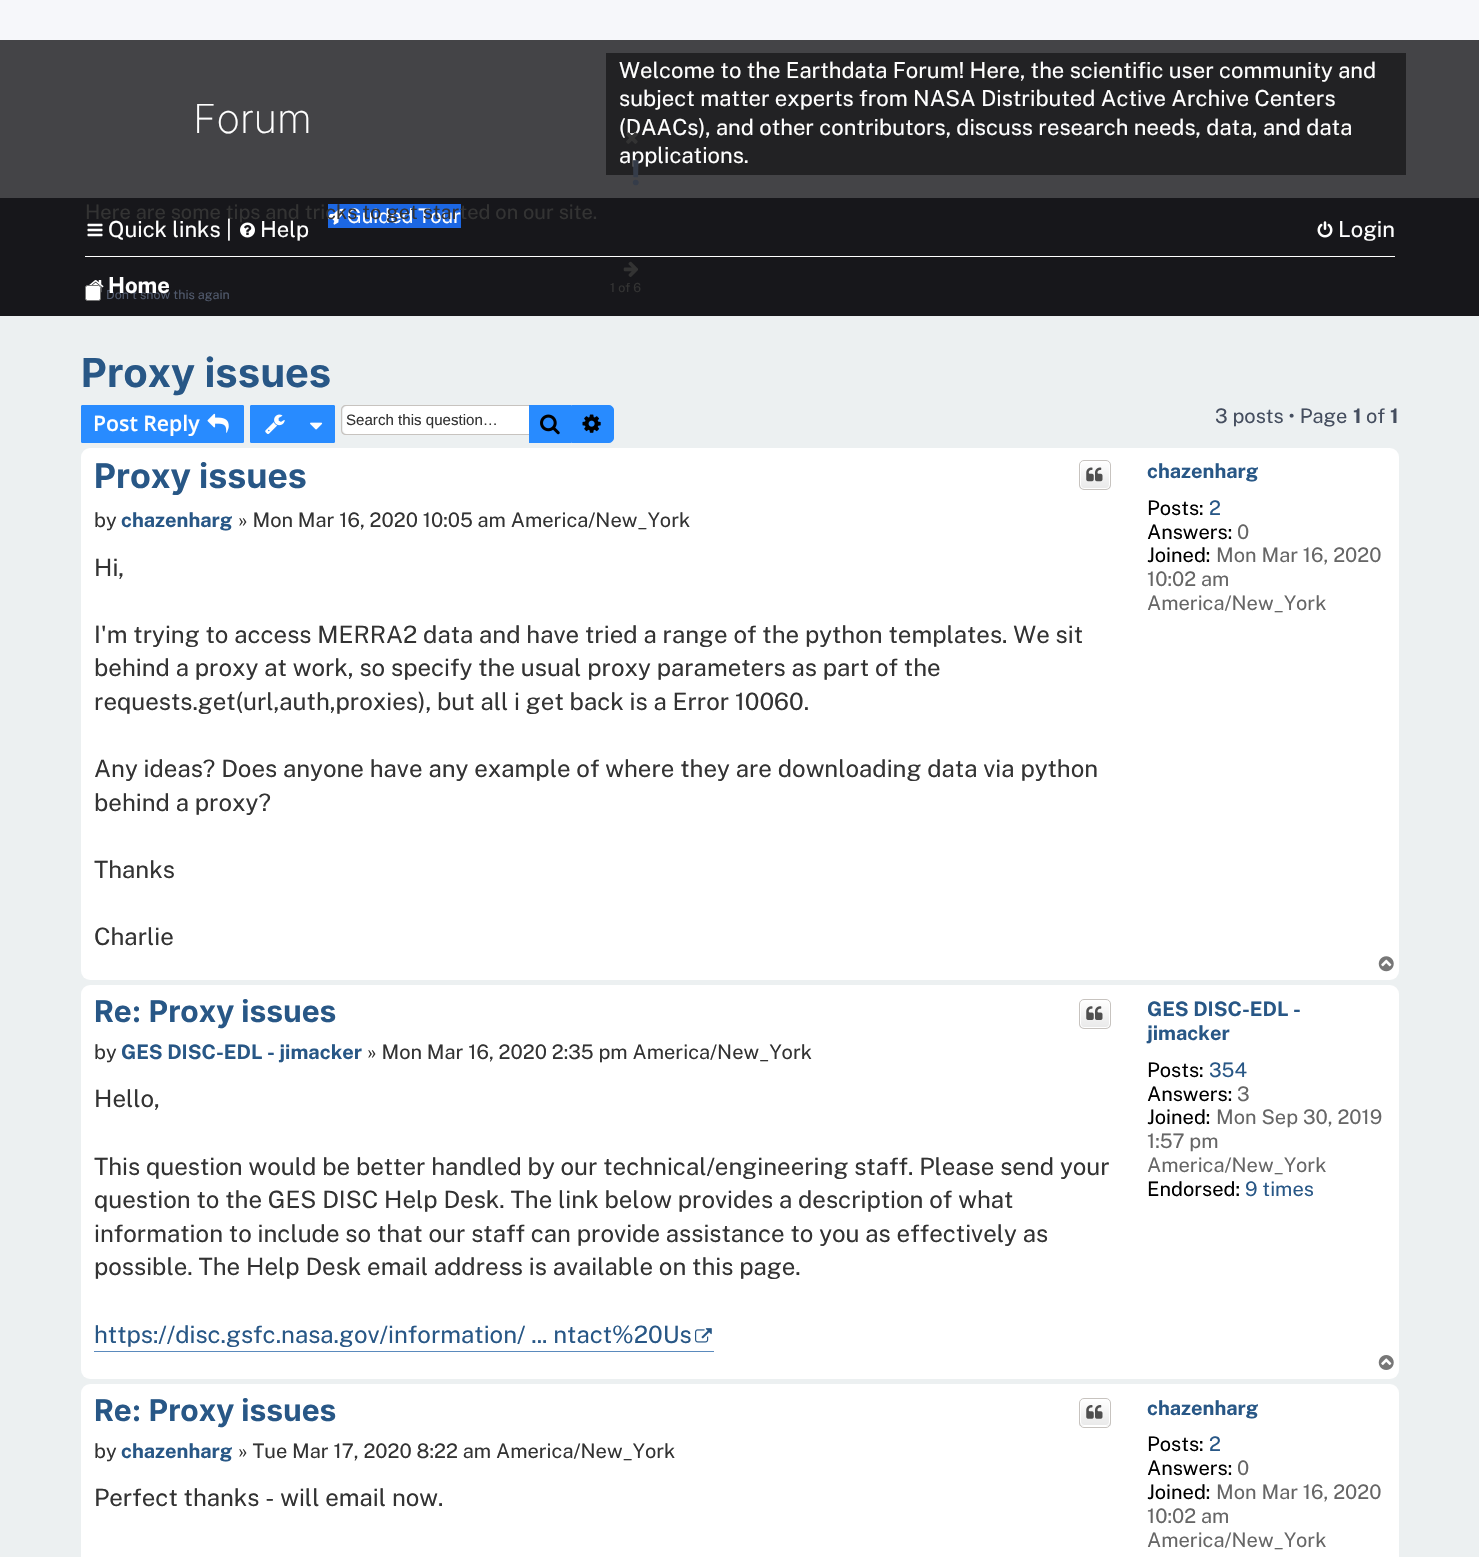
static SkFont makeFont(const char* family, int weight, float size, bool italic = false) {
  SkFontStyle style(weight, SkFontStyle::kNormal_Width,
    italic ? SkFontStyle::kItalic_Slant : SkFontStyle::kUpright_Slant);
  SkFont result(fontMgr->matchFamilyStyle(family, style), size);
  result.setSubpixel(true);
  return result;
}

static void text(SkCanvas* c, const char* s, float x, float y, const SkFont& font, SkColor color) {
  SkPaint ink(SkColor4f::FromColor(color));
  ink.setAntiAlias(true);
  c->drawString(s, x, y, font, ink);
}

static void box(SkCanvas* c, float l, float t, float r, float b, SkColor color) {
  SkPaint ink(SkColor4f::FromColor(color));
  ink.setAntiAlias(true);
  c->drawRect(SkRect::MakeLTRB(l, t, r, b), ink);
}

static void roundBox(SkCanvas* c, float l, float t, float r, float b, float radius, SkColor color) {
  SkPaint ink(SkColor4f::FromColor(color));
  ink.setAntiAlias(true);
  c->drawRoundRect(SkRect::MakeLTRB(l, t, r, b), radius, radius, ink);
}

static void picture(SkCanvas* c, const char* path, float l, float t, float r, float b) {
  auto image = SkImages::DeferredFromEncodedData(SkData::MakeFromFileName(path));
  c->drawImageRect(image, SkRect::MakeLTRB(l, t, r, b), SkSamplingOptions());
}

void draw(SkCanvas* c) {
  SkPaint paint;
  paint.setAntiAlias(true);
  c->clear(0xfff6f7fa);
  box(c, 0, 316, 1479, 1557, 0xffecf0f1);
  box(c, 0, 40, 1479, 198, 0xff444447);
  SkFont face1 = makeFont("Inter", 200, 40);
  text(c, "Forum", 193, 133, face1, 0xffffffff);
  box(c, 606, 53, 1406, 175, 0xff222224);
  SkFont face2 = makeFont("Public Sans", 400, 22);
  text(c, "Welcome to the Earthdata Forum! Here, the scientific user community and", 619, 78, face2, 0xffffffff);
  text(c, "subject matter experts from NASA Distributed Active Archive Centers", 619, 106, face2, 0xffffffff);
  text(c, "(DAACs), and other contributors, discuss research needs, data, and data", 619, 135, face2, 0xffffffff);
  text(c, "applications.", 619, 163, face2, 0xffffffff);
  box(c, 0, 198, 1479, 316, 0xff17171b);
  picture(c, "img_01.png", 626, 132, 638, 144);
  SkFont face3 = makeFont("Inter", 700, 34);
  text(c, "!", 630, 185, face3, 0xff353c49);
  box(c, 328, 204, 461, 228, 0xff1c67e3);
  picture(c, "img_03.png", 327, 208, 344, 225);
  SkFont face4 = makeFont("Public Sans", 400, 20);
  text(c, "Guided Tour", 347, 223, face4, 0xffffffff);
  picture(c, "img_05.png", 240, 222, 255, 238);
  text(c, "Here are some tips and tricks to get started on our site.", 85, 219, face4, 0xff333333);
  picture(c, "img_02.png", 623, 261, 638, 277);
  SkFont face5 = makeFont("Public Sans", 400, 12.5f);
  text(c, "1 of 6", 610, 292, face5, 0xff333333);
  picture(c, "img_07.png", 89, 280, 104, 293);
  paint.setColor(0xffffffff);
  c->drawRoundRect(SkRect::MakeLTRB(85.5f, 285.5f, 100.5f, 300.5f), 2, 2, paint);
  paint.setStyle(SkPaint::kStroke_Style);
  paint.setStrokeWidth(1);
  paint.setColor(0xff767676);
  c->drawRoundRect(SkRect::MakeLTRB(85.5f, 285.5f, 100.5f, 300.5f), 2, 2, paint);
  text(c, "Don't show this again", 106, 299, face5, 0xff50596c);
  picture(c, "img_04.png", 87, 223, 103, 237);
  text(c, "Quick links |", 108, 237, face2, 0xffffffff);
  text(c, "Help", 260, 237, face2, 0xffffffff);
  picture(c, "img_06.png", 1317, 221, 1333, 238);
  text(c, "Login", 1338, 237, face2, 0xffffffff);
  box(c, 85, 256, 1395, 257, 0xffffffff);
  SkFont face6 = makeFont("Public Sans", 700, 22);
  text(c, "Home", 108, 293, face6, 0xffffffff);
  SkFont face7 = makeFont("Inter", 700, 40);
  text(c, "Proxy issues", 81, 387, face7, 0xff285786);
  paint.setStyle(SkPaint::kFill_Style);
  paint.setColor(0xff288bff);
  c->drawRoundRect(SkRect::MakeLTRB(81.5f, 405.5f, 243.5f, 442.5f), 0.5f, 0.5f, paint);
  paint.setStyle(SkPaint::kStroke_Style);
  c->drawRoundRect(SkRect::MakeLTRB(81.5f, 405.5f, 243.5f, 442.5f), 0.5f, 0.5f, paint);
  SkFont face8 = makeFont("Open Sans", 600, 21.25f);
  text(c, "Post Reply", 93, 431, face8, 0xffffffff);
  picture(c, "img_08.png", 207, 413, 229, 433);
  paint.setStyle(SkPaint::kFill_Style);
  c->drawRoundRect(SkRect::MakeLTRB(250.5f, 405.5f, 334.5f, 442.5f), 0.5f, 0.5f, paint);
  paint.setStyle(SkPaint::kStroke_Style);
  c->drawRoundRect(SkRect::MakeLTRB(250.5f, 405.5f, 334.5f, 442.5f), 0.5f, 0.5f, paint);
  picture(c, "img_09.png", 265, 414, 285, 434);
  picture(c, "img_10.png", 310, 422, 323, 430);
  paint.setStyle(SkPaint::kFill_Style);
  paint.setColor(0xffffffff);
  c->drawPath(SkPathBuilder().moveTo(347, 406).lineTo(529, 406).lineTo(529, 434).lineTo(347, 434).cubicTo(345, 434, 343, 432, 343, 430).lineTo(343, 410).cubicTo(343, 408, 345, 406, 347, 406).close().detach(), paint);
  paint.setColor(0xffc7c3bf);
  c->drawPath(SkPathBuilder(SkPathFillType::kEvenOdd).moveTo(346, 405).lineTo(529, 405).lineTo(529, 435).lineTo(346, 435).cubicTo(343, 435, 341, 433, 341, 430).lineTo(341, 410).cubicTo(341, 407, 343, 405, 346, 405).close().moveTo(346, 406).lineTo(529, 406).lineTo(529, 434).lineTo(346, 434).cubicTo(344, 434, 342, 432, 342, 430).lineTo(342, 410).cubicTo(342, 408, 344, 406, 346, 406).close().detach(), paint);
  SkFont face9 = makeFont("Liberation Sans", 400, 15.1f);
  text(c, "Search this question…", 346, 425, face9, 0xff333333);
  box(c, 529, 405, 571, 443, 0xff288bff);
  picture(c, "img_11.png", 540, 414, 560, 435);
  paint.setColor(0xff288bff);
  c->drawPath(SkPathBuilder().moveTo(571.5f, 405.5f).lineTo(609, 405.5f).cubicTo(611.5f, 405.5f, 613.5f, 407.5f, 613.5f, 410).lineTo(613.5f, 438).cubicTo(613.5f, 440.5f, 611.5f, 442.5f, 609, 442.5f).lineTo(571.5f, 442.5f).close().detach(), paint);
  paint.setStyle(SkPaint::kStroke_Style);
  c->drawPath(SkPathBuilder().moveTo(571.5f, 405.5f).lineTo(609, 405.5f).cubicTo(611.5f, 405.5f, 613.5f, 407.5f, 613.5f, 410).lineTo(613.5f, 438).cubicTo(613.5f, 440.5f, 611.5f, 442.5f, 609, 442.5f).lineTo(571.5f, 442.5f).close().detach(), paint);
  picture(c, "img_12.png", 582, 414, 601, 433);
  text(c, "3 posts • Page", 1215, 423, face4, 0xff454e5f);
  SkFont face10 = makeFont("Public Sans", 700, 20);
  text(c, "1", 1353, 423, face10, 0xff454e5f);
  text(c, "of", 1366, 423, face4, 0xff454e5f);
  text(c, "1", 1390, 423, face10, 0xff454e5f);
  roundBox(c, 81, 448, 1399, 980, 9, 0xffffffff);
  text(c, "Proxy issues", 94, 488, face3, 0xff285786);
  c->save();
  c->clipPath(SkPathBuilder().moveTo(1084, 460).lineTo(1106, 460).cubicTo(1109, 460, 1111, 462, 1111, 465).lineTo(1111, 485).cubicTo(1111, 488, 1109, 490, 1106, 490).lineTo(1084, 490).cubicTo(1081, 490, 1079, 488, 1079, 485).lineTo(1079, 465).cubicTo(1079, 462, 1081, 460, 1084, 460).close().detach(), true);
  paint.setStyle(SkPaint::kFill_Style);
  {
    const SkColor colors[] = {0xffffffff, 0xffe9e9e9};
    const float stops[] = {0, 1};
    const SkPoint ends[] = {{1095, 461}, {1095, 489}};
    paint.setShader(SkGradientShader::MakeLinear(ends, colors, stops, 2, SkTileMode::kClamp));
    paint.setAlpha(255);
  }
  c->drawRect(SkRect::MakeLTRB(1079, 461, 1111, 489), paint);
  c->restore();
  paint.setStyle(SkPaint::kStroke_Style);
  paint.setShader(nullptr);
  paint.setColor(0xffffffff);
  c->drawRoundRect(SkRect::MakeLTRB(1080.5f, 461.5f, 1109.5f, 488.5f), 3.5f, 3.5f, paint);
  paint.setColor(0xffc7c3bf);
  c->drawRoundRect(SkRect::MakeLTRB(1079.5f, 460.5f, 1110.5f, 489.5f), 4.5f, 4.5f, paint);
  picture(c, "img_13.png", 1086, 467, 1103, 482);
  text(c, "by", 94, 527, face4, 0xff333333);
  text(c, "chazenharg", 121, 527, face10, 0xff285786);
  text(c, "» Mon Mar 16, 2020 10:05 am America/New_York", 238, 527, face4, 0xff333333);
  SkFont face11 = makeFont("Public Sans", 400, 24);
  text(c, "Hi,", 94, 576, face11, 0xff333333);
  text(c, "I'm trying to access MERRA2 data and have tried a range of the python templates. We sit", 94, 643, face11, 0xff333333);
  text(c, "behind a proxy at work, so specify the usual proxy parameters as part of the", 94, 676, face11, 0xff333333);
  text(c, "requests.get(url,auth,proxies), but all i get back is a Error 10060.", 94, 710, face11, 0xff333333);
  text(c, "Any ideas? Does anyone have any example of where they are downloading data via python", 94, 777, face11, 0xff333333);
  text(c, "behind a proxy?", 94, 811, face11, 0xff333333);
  text(c, "Thanks", 94, 878, face11, 0xff333333);
  text(c, "Charlie", 94, 945, face11, 0xff333333);
  text(c, "chazenharg", 1147, 478, face10, 0xff285786);
  text(c, "Posts:", 1147, 515, face4, 0xff000000);
  text(c, "2", 1209, 515, face4, 0xff285786);
  text(c, "Answers:", 1147, 539, face4, 0xff000000);
  text(c, "0", 1237, 539, face4, 0xff666666);
  text(c, "Joined:", 1147, 562, face4, 0xff000000);
  text(c, "Mon Mar 16, 2020", 1216, 562, face4, 0xff666666);
  text(c, "10:02 am", 1147, 586, face4, 0xff666666);
  text(c, "America/New_York", 1147, 610, face4, 0xff666666);
  picture(c, "img_14.png", 1378, 956, 1394, 972);
  roundBox(c, 81, 985, 1399, 1379, 9, 0xffffffff);
  SkFont face12 = makeFont("Inter", 700, 30);
  text(c, "Re: Proxy issues", 94, 1022, face12, 0xff285786);
  c->save();
  c->clipPath(SkPathBuilder().moveTo(1084, 999).lineTo(1106, 999).cubicTo(1109, 999, 1111, 1001, 1111, 1004).lineTo(1111, 1024).cubicTo(1111, 1027, 1109, 1029, 1106, 1029).lineTo(1084, 1029).cubicTo(1081, 1029, 1079, 1027, 1079, 1024).lineTo(1079, 1004).cubicTo(1079, 1001, 1081, 999, 1084, 999).close().detach(), true);
  paint.setStyle(SkPaint::kFill_Style);
  {
    const SkColor colors[] = {0xffffffff, 0xffe9e9e9};
    const float stops[] = {0, 1};
    const SkPoint ends[] = {{1095, 1000}, {1095, 1028}};
    paint.setShader(SkGradientShader::MakeLinear(ends, colors, stops, 2, SkTileMode::kClamp));
    paint.setAlpha(255);
  }
  c->drawRect(SkRect::MakeLTRB(1079, 1000, 1111, 1028), paint);
  c->restore();
  paint.setStyle(SkPaint::kStroke_Style);
  paint.setShader(nullptr);
  paint.setColor(0xffffffff);
  c->drawRoundRect(SkRect::MakeLTRB(1080.5f, 1000.5f, 1109.5f, 1027.5f), 3.5f, 3.5f, paint);
  paint.setColor(0xffc7c3bf);
  c->drawRoundRect(SkRect::MakeLTRB(1079.5f, 999.5f, 1110.5f, 1028.5f), 4.5f, 4.5f, paint);
  picture(c, "img_15.png", 1086, 1006, 1103, 1020);
  text(c, "by", 94, 1059, face4, 0xff333333);
  text(c, "GES DISC-EDL - jimacker", 121, 1059, face10, 0xff285786);
  text(c, "» Mon Mar 16, 2020 2:35 pm America/New_York", 367, 1059, face4, 0xff333333);
  text(c, "Hello,", 94, 1107, face11, 0xff333333);
  text(c, "This question would be better handled by our technical/engineering staff. Please send your", 94, 1175, face11, 0xff333333);
  text(c, "question to the GES DISC Help Desk. The link below provides a description of what", 94, 1208, face11, 0xff333333);
  text(c, "information to include so that our staff can provide assistance to you as effectively as", 94, 1242, face11, 0xff333333);
  text(c, "possible. The Help Desk email address is available on this page.", 94, 1275, face11, 0xff333333);
  box(c, 94, 1351, 714, 1352, 0xff5a8abd);
  text(c, "https://disc.gsfc.nasa.gov/information/ ... ntact%20Us", 94, 1343, face11, 0xff285786);
  picture(c, "img_16.png", 695, 1328, 712, 1343);
  text(c, "GES DISC-EDL -", 1147, 1016, face10, 0xff285786);
  text(c, "jimacker", 1147, 1040, face10, 0xff285786);
  text(c, "Posts:", 1147, 1077, face4, 0xff000000);
  text(c, "354", 1209, 1077, face4, 0xff285786);
  text(c, "Answers:", 1147, 1101, face4, 0xff000000);
  text(c, "3", 1237, 1101, face4, 0xff666666);
  text(c, "Joined:", 1147, 1124, face4, 0xff000000);
  text(c, "Mon Sep 30, 2019", 1216, 1124, face4, 0xff666666);
  text(c, "1:57 pm", 1147, 1148, face4, 0xff666666);
  text(c, "America/New_York", 1147, 1172, face4, 0xff666666);
  text(c, "Endorsed:", 1147, 1196, face4, 0xff000000);
  text(c, "9 times", 1245, 1196, face4, 0xff285786);
  picture(c, "img_17.png", 1378, 1355, 1394, 1370);
  roundBox(c, 81, 1384, 1399, 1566, 9, 0xffffffff);
  text(c, "Re: Proxy issues", 94, 1421, face12, 0xff285786);
  c->save();
  c->clipPath(SkPathBuilder().moveTo(1084, 1398).lineTo(1106, 1398).cubicTo(1109, 1398, 1111, 1400, 1111, 1403).lineTo(1111, 1423).cubicTo(1111, 1426, 1109, 1428, 1106, 1428).lineTo(1084, 1428).cubicTo(1081, 1428, 1079, 1426, 1079, 1423).lineTo(1079, 1403).cubicTo(1079, 1400, 1081, 1398, 1084, 1398).close().detach(), true);
  paint.setStyle(SkPaint::kFill_Style);
  {
    const SkColor colors[] = {0xffffffff, 0xffe9e9e9};
    const float stops[] = {0, 1};
    const SkPoint ends[] = {{1095, 1399}, {1095, 1426}};
    paint.setShader(SkGradientShader::MakeLinear(ends, colors, stops, 2, SkTileMode::kClamp));
    paint.setAlpha(255);
  }
  c->drawRect(SkRect::MakeLTRB(1079, 1399, 1111, 1426), paint);
  c->restore();
  paint.setStyle(SkPaint::kStroke_Style);
  paint.setShader(nullptr);
  paint.setColor(0xffffffff);
  c->drawRoundRect(SkRect::MakeLTRB(1080.5f, 1399.5f, 1109.5f, 1425.5f), 3.5f, 3.5f, paint);
  paint.setColor(0xffc7c3bf);
  c->drawRoundRect(SkRect::MakeLTRB(1079.5f, 1398.5f, 1110.5f, 1427.5f), 4.5f, 4.5f, paint);
  picture(c, "img_18.png", 1086, 1405, 1103, 1419);
  text(c, "by", 94, 1458, face4, 0xff333333);
  text(c, "chazenharg", 121, 1458, face10, 0xff285786);
  text(c, "» Tue Mar 17, 2020 8:22 am America/New_York", 238, 1458, face4, 0xff333333);
  text(c, "Perfect thanks - will email now.", 94, 1506, face11, 0xff333333);
  text(c, "chazenharg", 1147, 1415, face10, 0xff285786);
  text(c, "Posts:", 1147, 1451, face4, 0xff000000);
  text(c, "2", 1209, 1451, face4, 0xff285786);
  text(c, "Answers:", 1147, 1475, face4, 0xff000000);
  text(c, "0", 1237, 1475, face4, 0xff666666);
  text(c, "Joined:", 1147, 1499, face4, 0xff000000);
  text(c, "Mon Mar 16, 2020", 1216, 1499, face4, 0xff666666);
  text(c, "10:02 am", 1147, 1523, face4, 0xff666666);
  text(c, "America/New_York", 1147, 1547, face4, 0xff666666);
}
